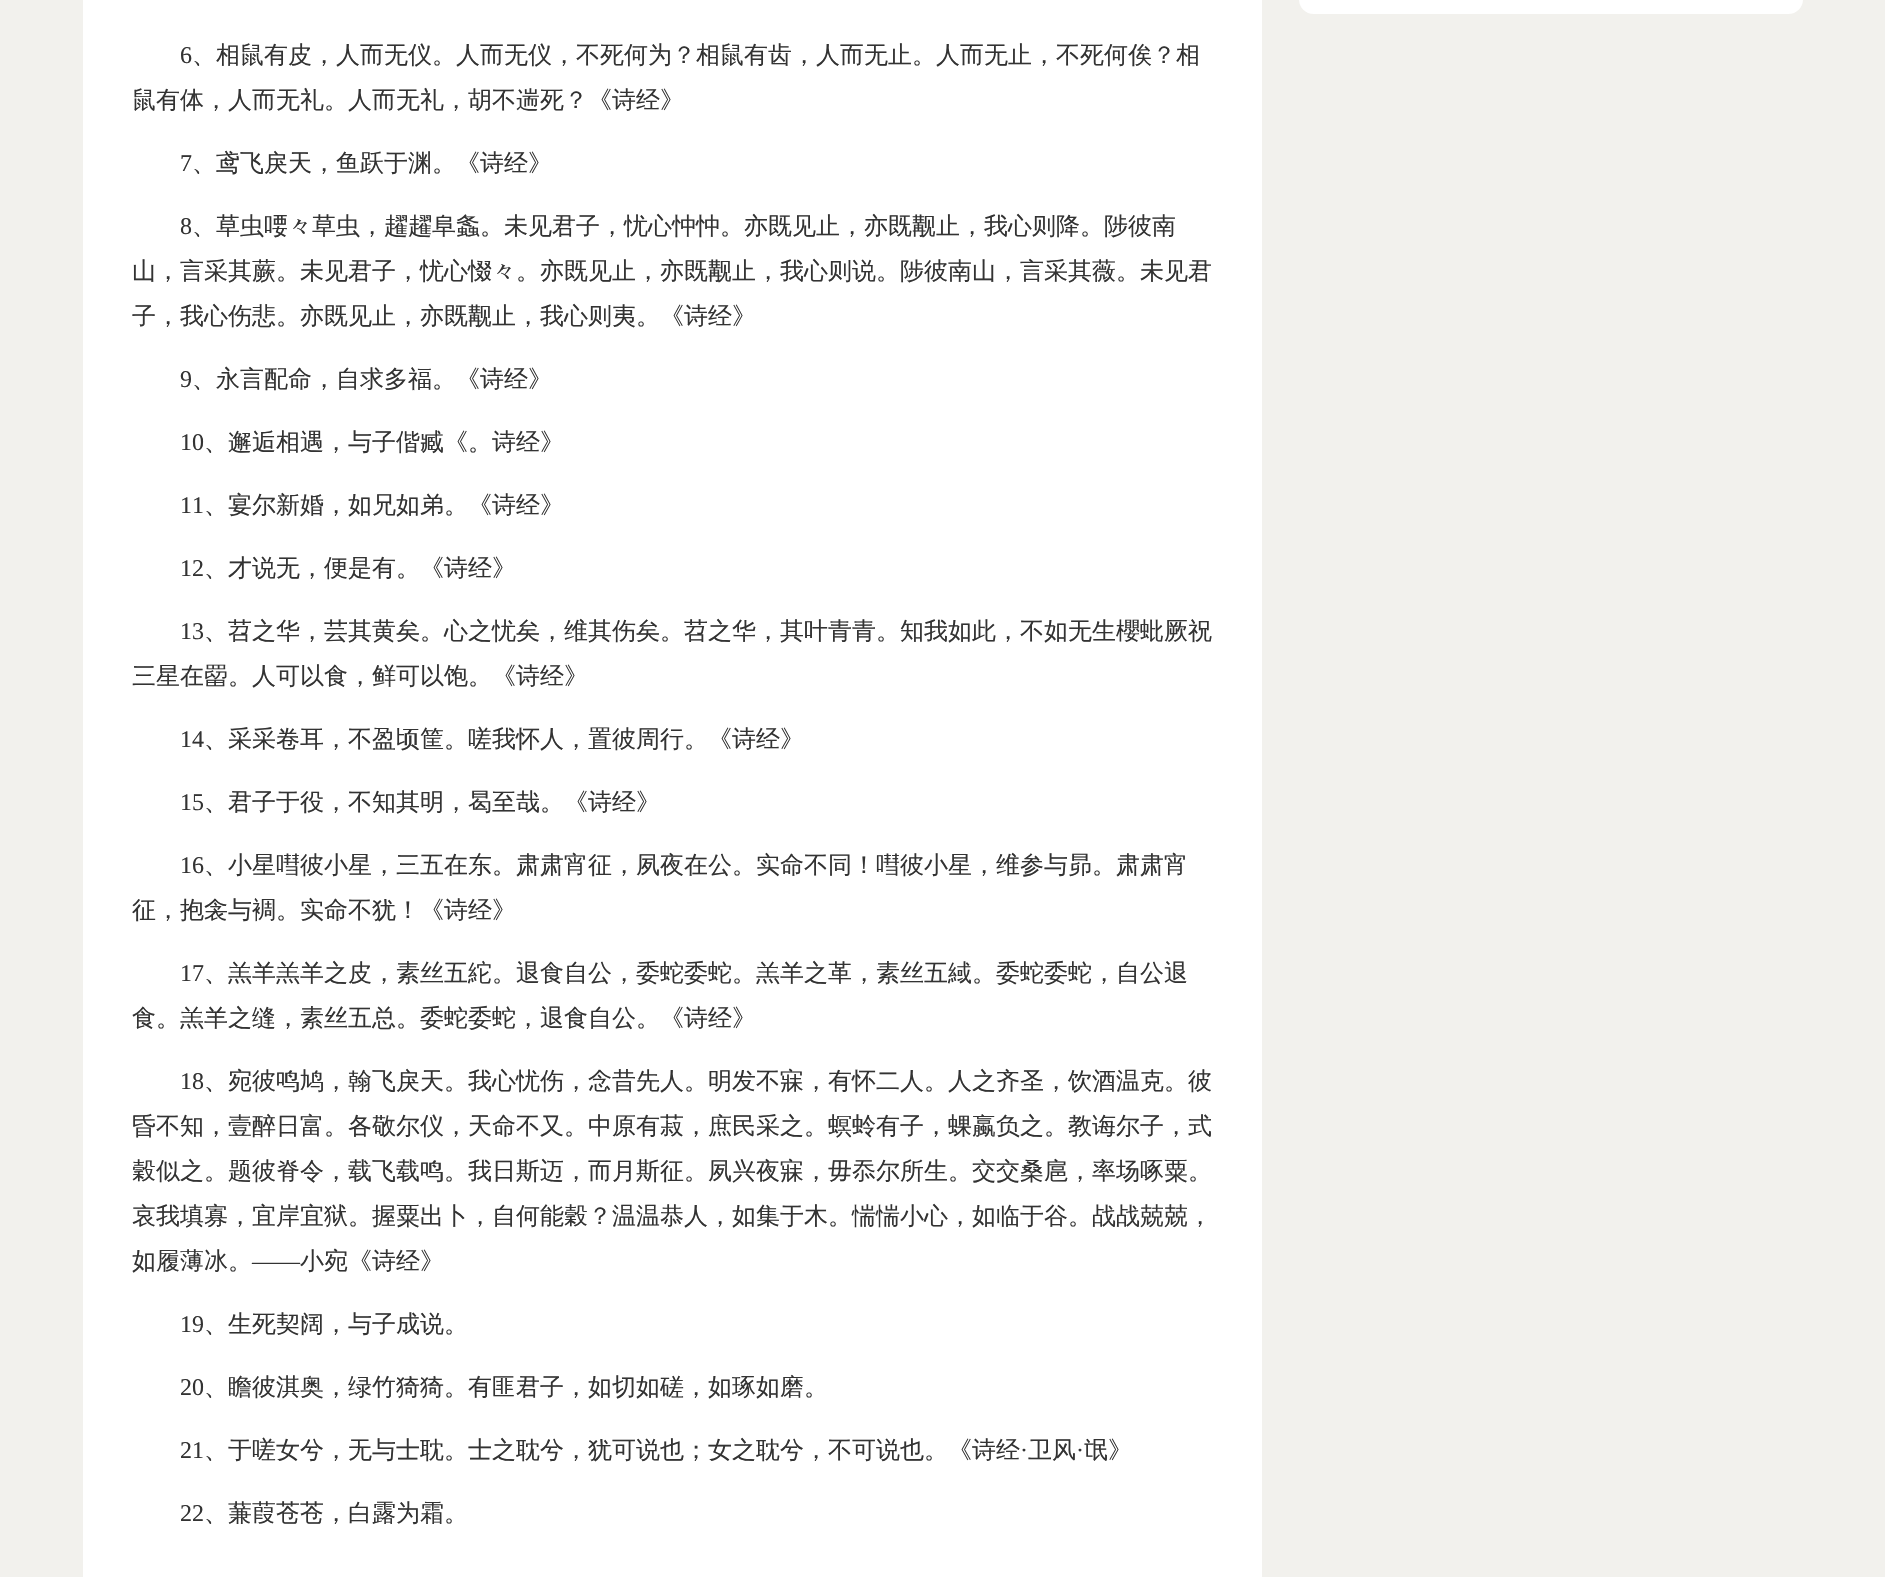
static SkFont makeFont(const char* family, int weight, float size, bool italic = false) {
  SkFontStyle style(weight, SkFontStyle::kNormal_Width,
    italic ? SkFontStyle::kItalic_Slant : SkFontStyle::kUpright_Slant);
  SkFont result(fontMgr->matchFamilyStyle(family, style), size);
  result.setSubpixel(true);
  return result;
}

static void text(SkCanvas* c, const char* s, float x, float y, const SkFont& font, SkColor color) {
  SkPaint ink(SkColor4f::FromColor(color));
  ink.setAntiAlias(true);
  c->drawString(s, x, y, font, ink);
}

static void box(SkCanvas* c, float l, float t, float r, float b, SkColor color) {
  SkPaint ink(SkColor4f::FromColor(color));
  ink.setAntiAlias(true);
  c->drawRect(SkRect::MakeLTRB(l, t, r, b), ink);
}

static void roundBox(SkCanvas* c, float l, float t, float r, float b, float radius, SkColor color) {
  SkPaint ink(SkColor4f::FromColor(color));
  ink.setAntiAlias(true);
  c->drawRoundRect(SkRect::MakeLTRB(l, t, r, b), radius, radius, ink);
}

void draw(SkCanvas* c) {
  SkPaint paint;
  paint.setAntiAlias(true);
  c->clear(0xfff2f1ed);
  roundBox(c, 1299, -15, 1803, 14, 15, 0xffffffff);
  box(c, 83, 0, 1262, 1577, 0xffffffff);
  SkFont face1 = makeFont("Liberation Serif", 400, 24);
  text(c, "6", 180, 63, face1, 0xff333333);
  SkFont face2 = makeFont("WenQuanYi Zen Hei", 500, 24);
  text(c, "、相鼠有皮，人而无仪。人而无仪，不死何为？相鼠有齿，人而无止。人而无止，不死何俟？相", 192, 63, face2, 0xff333333);
  text(c, "鼠有体，人而无礼。人而无礼，胡不遄死？《诗经》", 132, 108, face2, 0xff333333);
  text(c, "7", 180, 171, face1, 0xff333333);
  text(c, "、鸢飞戾天，鱼跃于渊。《诗经》", 192, 171, face2, 0xff333333);
  text(c, "8", 180, 234, face1, 0xff333333);
  text(c, "、草虫喓々草虫，趯趯阜螽。未见君子，忧心忡忡。亦既见止，亦既觏止，我心则降。陟彼南", 192, 234, face2, 0xff333333);
  text(c, "山，言采其蕨。未见君子，忧心惙々。亦既见止，亦既觏止，我心则说。陟彼南山，言采其薇。未见君", 132, 279, face2, 0xff333333);
  text(c, "子，我心伤悲。亦既见止，亦既觏止，我心则夷。《诗经》", 132, 324, face2, 0xff333333);
  text(c, "9", 180, 387, face1, 0xff333333);
  text(c, "、永言配命，自求多福。《诗经》", 192, 387, face2, 0xff333333);
  text(c, "10", 180, 450, face1, 0xff333333);
  text(c, "、邂逅相遇，与子偕臧《。诗经》", 204, 450, face2, 0xff333333);
  text(c, "11", 180, 513, face1, 0xff333333);
  text(c, "、宴尔新婚，如兄如弟。《诗经》", 204, 513, face2, 0xff333333);
  text(c, "12", 180, 576, face1, 0xff333333);
  text(c, "、才说无，便是有。《诗经》", 204, 576, face2, 0xff333333);
  text(c, "13", 180, 639, face1, 0xff333333);
  text(c, "、苕之华，芸其黄矣。心之忧矣，维其伤矣。苕之华，其叶青青。知我如此，不如无生櫻蚍厥祝", 204, 639, face2, 0xff333333);
  text(c, "三星在罶。人可以食，鲜可以饱。《诗经》", 132, 684, face2, 0xff333333);
  text(c, "14", 180, 747, face1, 0xff333333);
  text(c, "、采采卷耳，不盈顷筐。嗟我怀人，置彼周行。《诗经》", 204, 747, face2, 0xff333333);
  text(c, "15", 180, 810, face1, 0xff333333);
  text(c, "、君子于役，不知其明，曷至哉。《诗经》", 204, 810, face2, 0xff333333);
  text(c, "16", 180, 873, face1, 0xff333333);
  text(c, "、小星嘒彼小星，三五在东。肃肃宵征，夙夜在公。实命不同！嘒彼小星，维参与昴。肃肃宵", 204, 873, face2, 0xff333333);
  text(c, "征，抱衾与裯。实命不犹！《诗经》", 132, 918, face2, 0xff333333);
  text(c, "17", 180, 981, face1, 0xff333333);
  text(c, "、羔羊羔羊之皮，素丝五紽。退食自公，委蛇委蛇。羔羊之革，素丝五緎。委蛇委蛇，自公退", 204, 981, face2, 0xff333333);
  text(c, "食。羔羊之缝，素丝五总。委蛇委蛇，退食自公。《诗经》", 132, 1026, face2, 0xff333333);
  text(c, "18", 180, 1089, face1, 0xff333333);
  text(c, "、宛彼鸣鸠，翰飞戾天。我心忧伤，念昔先人。明发不寐，有怀二人。人之齐圣，饮酒温克。彼", 204, 1089, face2, 0xff333333);
  text(c, "昏不知，壹醉日富。各敬尔仪，天命不又。中原有菽，庶民采之。螟蛉有子，蜾蠃负之。教诲尔子，式", 132, 1134, face2, 0xff333333);
  text(c, "穀似之。题彼脊令，载飞载鸣。我日斯迈，而月斯征。夙兴夜寐，毋忝尔所生。交交桑扈，率场啄粟。", 132, 1179, face2, 0xff333333);
  text(c, "哀我填寡，宜岸宜狱。握粟出卜，自何能穀？温温恭人，如集于木。惴惴小心，如临于谷。战战兢兢，", 132, 1224, face2, 0xff333333);
  text(c, "如履薄冰。", 132, 1269, face2, 0xff333333);
  text(c, "——", 252, 1269, face1, 0xff333333);
  text(c, "小宛《诗经》", 300, 1269, face2, 0xff333333);
  text(c, "19", 180, 1332, face1, 0xff333333);
  text(c, "、生死契阔，与子成说。", 204, 1332, face2, 0xff333333);
  text(c, "20", 180, 1395, face1, 0xff333333);
  text(c, "、瞻彼淇奥，绿竹猗猗。有匪君子，如切如磋，如琢如磨。", 204, 1395, face2, 0xff333333);
  text(c, "21", 180, 1458, face1, 0xff333333);
  text(c, "、于嗟女兮，无与士耽。士之耽兮，犹可说也；女之耽兮，不可说也。《诗经", 204, 1458, face2, 0xff333333);
  text(c, "·", 1020, 1458, face1, 0xff333333);
  text(c, "卫风", 1028, 1458, face2, 0xff333333);
  text(c, "·", 1076, 1458, face1, 0xff333333);
  text(c, "氓》", 1084, 1458, face2, 0xff333333);
  text(c, "22", 180, 1521, face1, 0xff333333);
  text(c, "、蒹葭苍苍，白露为霜。", 204, 1521, face2, 0xff333333);
}
